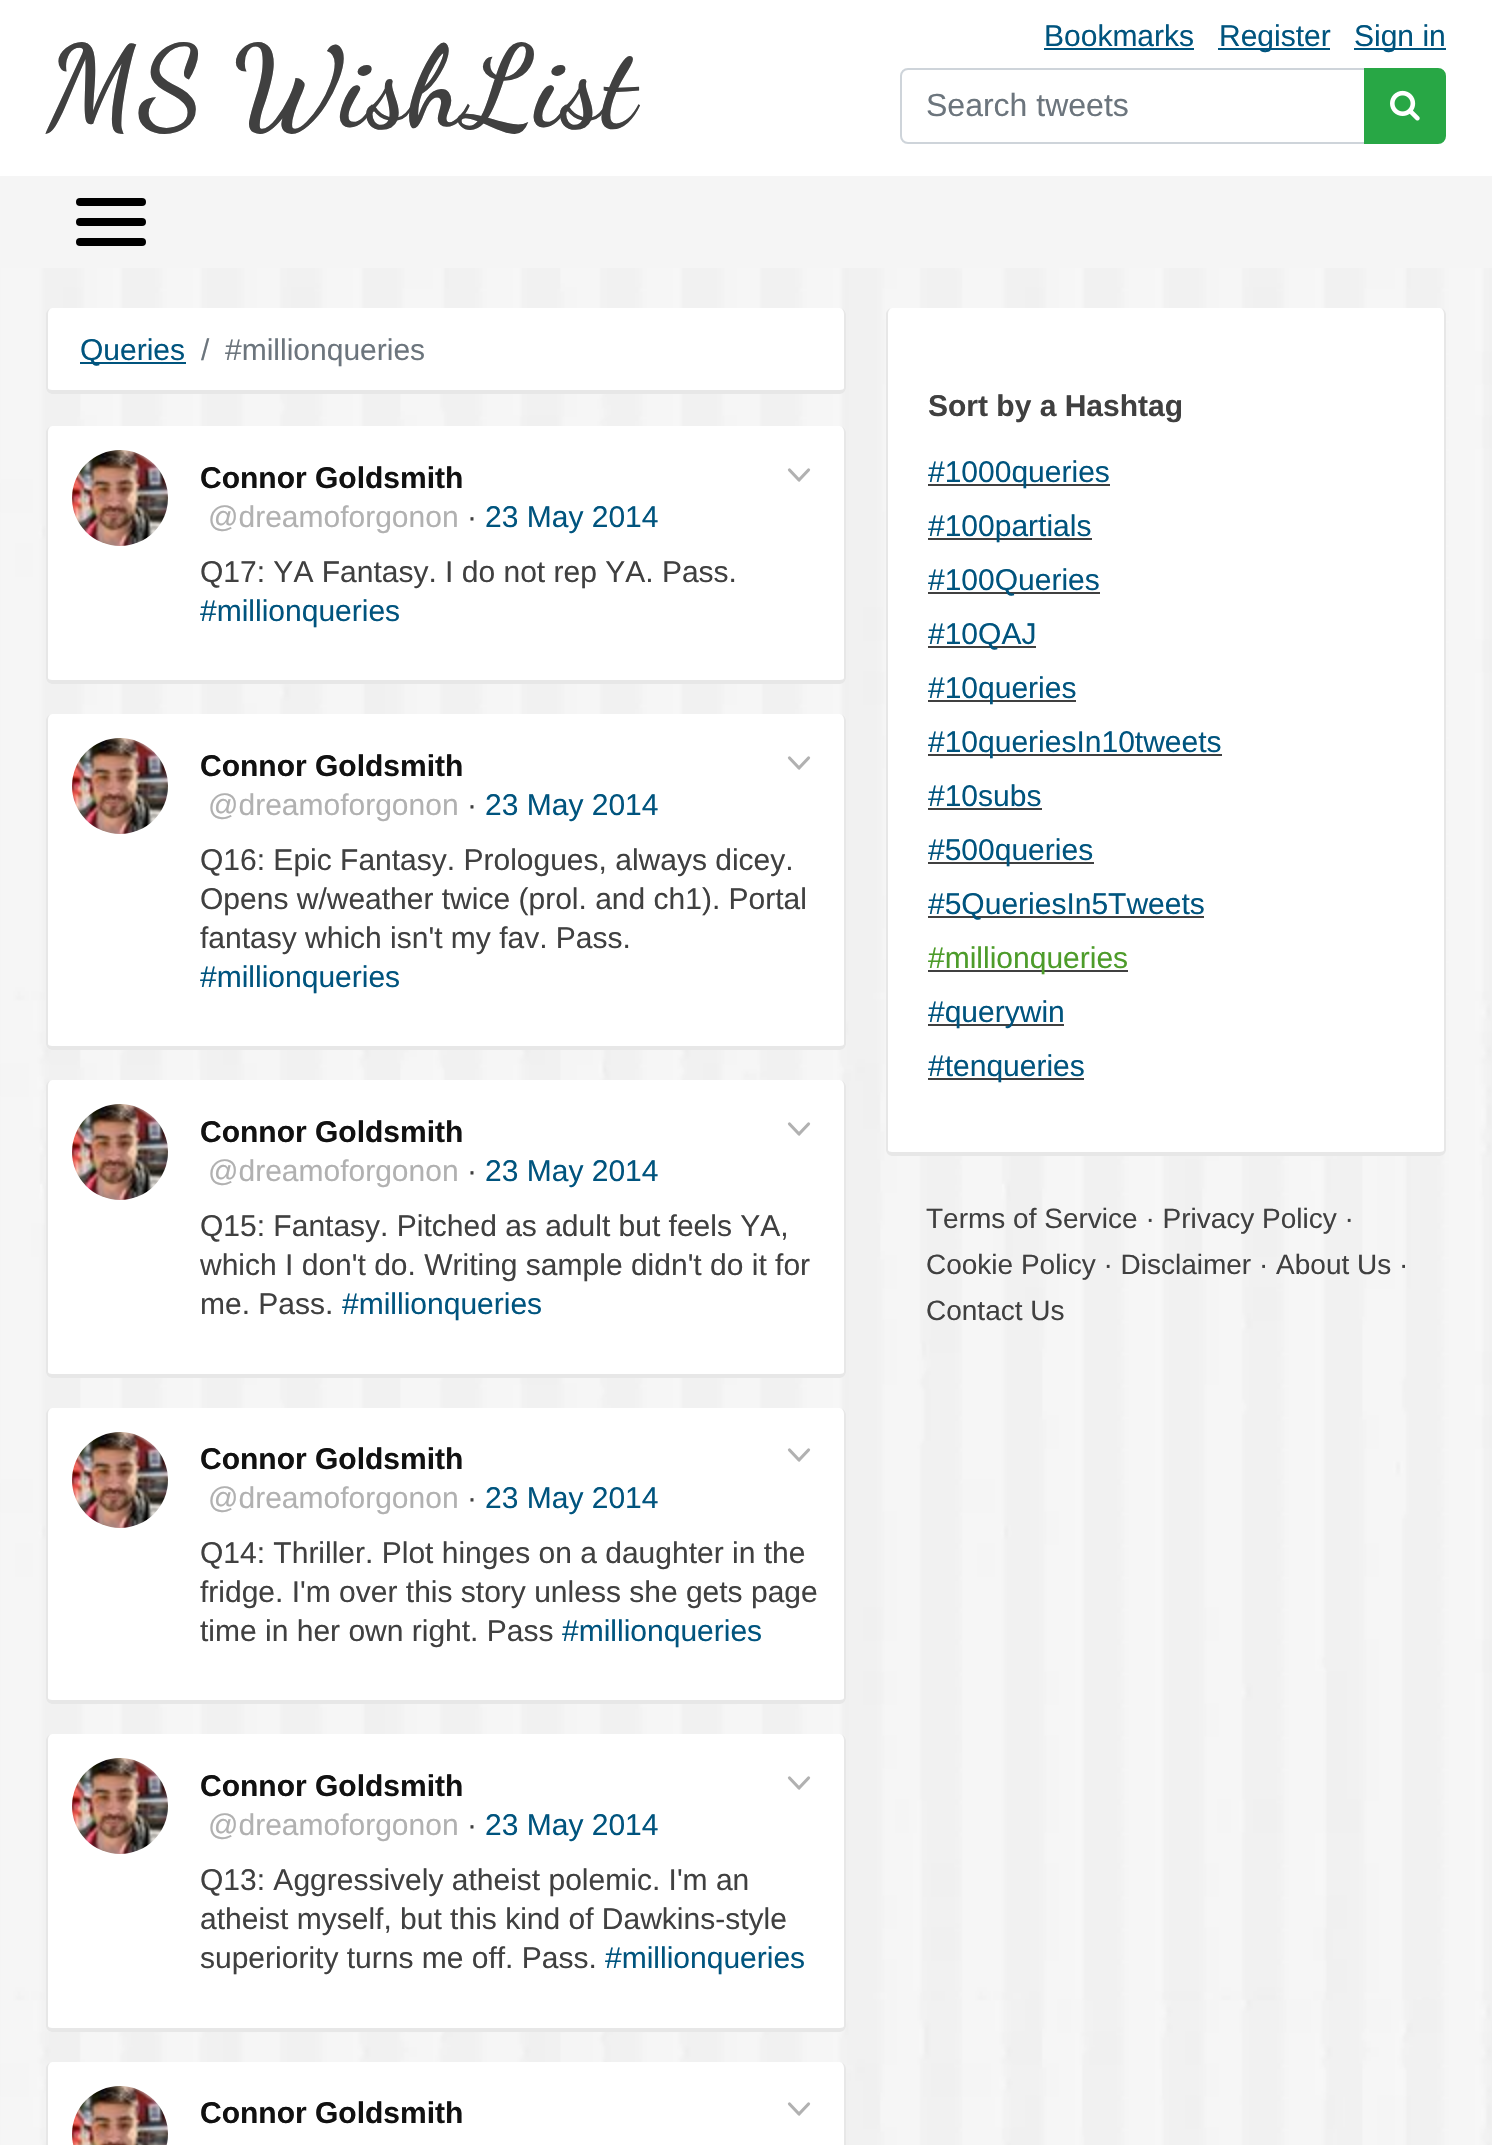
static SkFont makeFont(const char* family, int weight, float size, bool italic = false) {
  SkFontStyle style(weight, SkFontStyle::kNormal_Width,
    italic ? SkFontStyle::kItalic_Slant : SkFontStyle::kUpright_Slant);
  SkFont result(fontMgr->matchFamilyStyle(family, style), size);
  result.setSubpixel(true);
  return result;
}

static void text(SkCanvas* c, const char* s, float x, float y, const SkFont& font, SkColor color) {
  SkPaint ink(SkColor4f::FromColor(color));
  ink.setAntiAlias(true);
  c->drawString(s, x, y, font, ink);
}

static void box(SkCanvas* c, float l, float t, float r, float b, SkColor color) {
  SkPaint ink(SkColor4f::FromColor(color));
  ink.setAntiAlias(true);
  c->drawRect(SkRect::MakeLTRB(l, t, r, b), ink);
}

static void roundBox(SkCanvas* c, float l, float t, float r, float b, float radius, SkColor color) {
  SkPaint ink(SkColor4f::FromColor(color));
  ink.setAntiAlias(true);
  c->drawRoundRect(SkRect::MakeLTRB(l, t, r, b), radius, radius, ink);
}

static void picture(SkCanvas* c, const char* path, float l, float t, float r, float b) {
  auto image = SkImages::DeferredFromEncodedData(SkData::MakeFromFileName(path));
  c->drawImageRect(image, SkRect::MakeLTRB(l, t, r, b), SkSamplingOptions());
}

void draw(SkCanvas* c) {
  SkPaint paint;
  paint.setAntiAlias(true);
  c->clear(0xffffffff);
  picture(c, "img_01.png", 0, 268, 1492, 2145);
  SkFont face1 = makeFont("Dancing Script", 700, 114);
  text(c, "MS WishList", 46, 124, face1, 0xff404040);
  SkFont face2 = makeFont("Liberation Sans", 400, 30);
  text(c, "Bookmarks", 1044, 46, face2, 0xff00547e);
  box(c, 1044, 48, 1194, 50, 0xff00547e);
  box(c, 1218, 48, 1330, 50, 0xff00547e);
  text(c, "Register", 1219, 46, face2, 0xff00547e);
  box(c, 1354, 48, 1446, 50, 0xff00547e);
  text(c, "Sign in", 1354, 46, face2, 0xff00547e);
  paint.setStyle(SkPaint::kStroke_Style);
  paint.setStrokeWidth(2);
  paint.setColor(0xffced4da);
  c->drawPath(SkPathBuilder().moveTo(908, 69).lineTo(1365, 69).lineTo(1365, 143).lineTo(908, 143).cubicTo(904, 143, 901, 140, 901, 136).lineTo(901, 76).cubicTo(901, 72, 904, 69, 908, 69).close().detach(), paint);
  SkFont face3 = makeFont("Liberation Sans", 400, 32);
  text(c, "Search tweets", 926, 116, face3, 0xff6c757d);
  paint.setStyle(SkPaint::kFill_Style);
  paint.setColor(0xff28a745);
  c->drawPath(SkPathBuilder().moveTo(1365, 69).lineTo(1438, 69).cubicTo(1442, 69, 1445, 72, 1445, 76).lineTo(1445, 136).cubicTo(1445, 140, 1442, 143, 1438, 143).lineTo(1365, 143).close().detach(), paint);
  paint.setStyle(SkPaint::kStroke_Style);
  c->drawPath(SkPathBuilder().moveTo(1365, 69).lineTo(1438, 69).cubicTo(1442, 69, 1445, 72, 1445, 76).lineTo(1445, 136).cubicTo(1445, 140, 1442, 143, 1438, 143).lineTo(1365, 143).close().detach(), paint);
  picture(c, "img_02.png", 1390, 90, 1420, 121);
  box(c, 0, 176, 1492, 268, 0xfff5f5f5);
  roundBox(c, 76, 218, 146, 226, 4, 0xff000000);
  roundBox(c, 76, 198, 146, 206, 4, 0xff000000);
  roundBox(c, 76, 238, 146, 246, 4, 0xff000000);
  roundBox(c, 46, 308, 846, 394, 6, 0xffffffff);
  paint.setStyle(SkPaint::kFill_Style);
  paint.setColor(0xffe7e7e7);
  c->drawPath(SkPathBuilder(SkPathFillType::kEvenOdd).moveTo(52, 308).lineTo(840, 308).cubicTo(843, 308, 846, 311, 846, 314).lineTo(846, 388).cubicTo(846, 391, 843, 394, 840, 394).lineTo(52, 394).cubicTo(49, 394, 46, 391, 46, 388).lineTo(46, 314).cubicTo(46, 311, 49, 308, 52, 308).close().moveTo(52, 308).lineTo(840, 308).cubicTo(842, 308, 844, 311, 844, 314).lineTo(844, 388).cubicTo(844, 389, 842, 390, 840, 390).lineTo(52, 390).cubicTo(50, 390, 48, 389, 48, 388).lineTo(48, 314).cubicTo(48, 311, 50, 308, 52, 308).close().detach(), paint);
  box(c, 80, 362, 186, 364, 0xff00547e);
  text(c, "Queries", 80, 360, face2, 0xff00547e);
  text(c, "/", 201, 360, face2, 0xff6c757d);
  text(c, "#millionqueries", 225, 360, face2, 0xff6c757d);
  roundBox(c, 46, 426, 846, 684, 6, 0xffffffff);
  c->drawPath(SkPathBuilder(SkPathFillType::kEvenOdd).moveTo(52, 426).lineTo(840, 426).cubicTo(843, 426, 846, 429, 846, 432).lineTo(846, 678).cubicTo(846, 681, 843, 684, 840, 684).lineTo(52, 684).cubicTo(49, 684, 46, 681, 46, 678).lineTo(46, 432).cubicTo(46, 429, 49, 426, 52, 426).close().moveTo(52, 426).lineTo(840, 426).cubicTo(842, 426, 844, 429, 844, 432).lineTo(844, 678).cubicTo(844, 679, 842, 680, 840, 680).lineTo(52, 680).cubicTo(50, 680, 48, 679, 48, 678).lineTo(48, 432).cubicTo(48, 429, 50, 426, 52, 426).close().detach(), paint);
  picture(c, "img_03.png", 72, 450, 168, 546);
  SkFont face4 = makeFont("Liberation Sans", 700, 30);
  text(c, "Connor Goldsmith", 200, 488, face4, 0xff111111);
  text(c, "@dreamoforgonon", 208, 527, face2, 0xffb1b1b1);
  text(c, "·", 467, 527, face2, 0xff404040);
  text(c, "23 May 2014", 485, 527, face2, 0xff00547e);
  paint.setStyle(SkPaint::kStroke_Style);
  paint.setStrokeWidth(3.2f);
  paint.setStrokeCap(SkPaint::kRound_Cap);
  paint.setStrokeJoin(SkPaint::kRound_Join);
  paint.setColor(0xffb1b1b1);
  c->drawPath(SkPathBuilder().moveTo(789.5f, 470).lineTo(799, 480).lineTo(808.5f, 470).detach(), paint);
  text(c, "Q17: YA Fantasy. I do not rep YA. Pass.", 200, 582, face2, 0xff404040);
  text(c, "#millionqueries", 200, 621, face2, 0xff00547e);
  roundBox(c, 46, 714, 846, 1050, 6, 0xffffffff);
  paint.setStyle(SkPaint::kFill_Style);
  paint.setColor(0xffe7e7e7);
  c->drawPath(SkPathBuilder(SkPathFillType::kEvenOdd).moveTo(52, 714).lineTo(840, 714).cubicTo(843, 714, 846, 717, 846, 720).lineTo(846, 1044).cubicTo(846, 1047, 843, 1050, 840, 1050).lineTo(52, 1050).cubicTo(49, 1050, 46, 1047, 46, 1044).lineTo(46, 720).cubicTo(46, 717, 49, 714, 52, 714).close().moveTo(52, 714).lineTo(840, 714).cubicTo(842, 714, 844, 717, 844, 720).lineTo(844, 1044).cubicTo(844, 1045, 842, 1046, 840, 1046).lineTo(52, 1046).cubicTo(50, 1046, 48, 1045, 48, 1044).lineTo(48, 720).cubicTo(48, 717, 50, 714, 52, 714).close().detach(), paint);
  picture(c, "img_04.png", 72, 738, 168, 834);
  text(c, "Connor Goldsmith", 200, 776, face4, 0xff111111);
  text(c, "@dreamoforgonon", 208, 815, face2, 0xffb1b1b1);
  text(c, "·", 467, 815, face2, 0xff404040);
  text(c, "23 May 2014", 485, 815, face2, 0xff00547e);
  paint.setStyle(SkPaint::kStroke_Style);
  paint.setColor(0xffb1b1b1);
  c->drawPath(SkPathBuilder().moveTo(789.5f, 758).lineTo(799, 768).lineTo(808.5f, 758).detach(), paint);
  text(c, "Q16: Epic Fantasy. Prologues, always dicey.", 200, 870, face2, 0xff404040);
  text(c, "Opens w/weather twice (prol. and ch1). Portal", 200, 909, face2, 0xff404040);
  text(c, "fantasy which isn't my fav. Pass.", 200, 948, face2, 0xff404040);
  text(c, "#millionqueries", 200, 987, face2, 0xff00547e);
  roundBox(c, 46, 1080, 846, 1378, 6, 0xffffffff);
  paint.setStyle(SkPaint::kFill_Style);
  paint.setColor(0xffe7e7e7);
  c->drawPath(SkPathBuilder(SkPathFillType::kEvenOdd).moveTo(52, 1080).lineTo(840, 1080).cubicTo(843, 1080, 846, 1083, 846, 1086).lineTo(846, 1372).cubicTo(846, 1375, 843, 1378, 840, 1378).lineTo(52, 1378).cubicTo(49, 1378, 46, 1375, 46, 1372).lineTo(46, 1086).cubicTo(46, 1083, 49, 1080, 52, 1080).close().moveTo(52, 1080).lineTo(840, 1080).cubicTo(842, 1080, 844, 1083, 844, 1086).lineTo(844, 1372).cubicTo(844, 1373, 842, 1374, 840, 1374).lineTo(52, 1374).cubicTo(50, 1374, 48, 1373, 48, 1372).lineTo(48, 1086).cubicTo(48, 1083, 50, 1080, 52, 1080).close().detach(), paint);
  picture(c, "img_05.png", 72, 1104, 168, 1200);
  text(c, "Connor Goldsmith", 200, 1142, face4, 0xff111111);
  text(c, "@dreamoforgonon", 208, 1181, face2, 0xffb1b1b1);
  text(c, "·", 467, 1181, face2, 0xff404040);
  text(c, "23 May 2014", 485, 1181, face2, 0xff00547e);
  paint.setStyle(SkPaint::kStroke_Style);
  paint.setColor(0xffb1b1b1);
  c->drawPath(SkPathBuilder().moveTo(789.5f, 1124).lineTo(799, 1134).lineTo(808.5f, 1124).detach(), paint);
  text(c, "Q15: Fantasy. Pitched as adult but feels YA,", 200, 1236, face2, 0xff404040);
  text(c, "which I don't do. Writing sample didn't do it for", 200, 1275, face2, 0xff404040);
  text(c, "me. Pass.", 200, 1314, face2, 0xff404040);
  text(c, "#millionqueries", 342, 1314, face2, 0xff00547e);
  roundBox(c, 46, 1408, 846, 1704, 6, 0xffffffff);
  paint.setStyle(SkPaint::kFill_Style);
  paint.setColor(0xffe7e7e7);
  c->drawPath(SkPathBuilder(SkPathFillType::kEvenOdd).moveTo(52, 1408).lineTo(840, 1408).cubicTo(843, 1408, 846, 1411, 846, 1414).lineTo(846, 1698).cubicTo(846, 1701, 843, 1704, 840, 1704).lineTo(52, 1704).cubicTo(49, 1704, 46, 1701, 46, 1698).lineTo(46, 1414).cubicTo(46, 1411, 49, 1408, 52, 1408).close().moveTo(52, 1408).lineTo(840, 1408).cubicTo(842, 1408, 844, 1411, 844, 1414).lineTo(844, 1698).cubicTo(844, 1699, 842, 1700, 840, 1700).lineTo(52, 1700).cubicTo(50, 1700, 48, 1699, 48, 1698).lineTo(48, 1414).cubicTo(48, 1411, 50, 1408, 52, 1408).close().detach(), paint);
  picture(c, "img_06.png", 72, 1432, 168, 1528);
  text(c, "Connor Goldsmith", 200, 1469, face4, 0xff111111);
  text(c, "@dreamoforgonon", 208, 1508, face2, 0xffb1b1b1);
  text(c, "·", 467, 1508, face2, 0xff404040);
  text(c, "23 May 2014", 485, 1508, face2, 0xff00547e);
  paint.setStyle(SkPaint::kStroke_Style);
  paint.setColor(0xffb1b1b1);
  c->drawPath(SkPathBuilder().moveTo(789.5f, 1450).lineTo(799, 1460).lineTo(808.5f, 1450).detach(), paint);
  text(c, "Q14: Thriller. Plot hinges on a daughter in the", 200, 1563, face2, 0xff404040);
  text(c, "fridge. I'm over this story unless she gets page", 200, 1602, face2, 0xff404040);
  text(c, "time in her own right. Pass", 200, 1641, face2, 0xff404040);
  text(c, "#millionqueries", 562, 1641, face2, 0xff00547e);
  roundBox(c, 46, 1734, 846, 2032, 6, 0xffffffff);
  paint.setStyle(SkPaint::kFill_Style);
  paint.setColor(0xffe7e7e7);
  c->drawPath(SkPathBuilder(SkPathFillType::kEvenOdd).moveTo(52, 1734).lineTo(840, 1734).cubicTo(843, 1734, 846, 1737, 846, 1740).lineTo(846, 2026).cubicTo(846, 2029, 843, 2032, 840, 2032).lineTo(52, 2032).cubicTo(49, 2032, 46, 2029, 46, 2026).lineTo(46, 1740).cubicTo(46, 1737, 49, 1734, 52, 1734).close().moveTo(52, 1734).lineTo(840, 1734).cubicTo(842, 1734, 844, 1737, 844, 1740).lineTo(844, 2026).cubicTo(844, 2027, 842, 2028, 840, 2028).lineTo(52, 2028).cubicTo(50, 2028, 48, 2027, 48, 2026).lineTo(48, 1740).cubicTo(48, 1737, 50, 1734, 52, 1734).close().detach(), paint);
  picture(c, "img_07.png", 72, 1758, 168, 1854);
  text(c, "Connor Goldsmith", 200, 1796, face4, 0xff111111);
  text(c, "@dreamoforgonon", 208, 1835, face2, 0xffb1b1b1);
  text(c, "·", 467, 1835, face2, 0xff404040);
  text(c, "23 May 2014", 485, 1835, face2, 0xff00547e);
  paint.setStyle(SkPaint::kStroke_Style);
  paint.setColor(0xffb1b1b1);
  c->drawPath(SkPathBuilder().moveTo(789.5f, 1778).lineTo(799, 1788).lineTo(808.5f, 1778).detach(), paint);
  text(c, "Q13: Aggressively atheist polemic. I'm an", 200, 1890, face2, 0xff404040);
  text(c, "atheist myself, but this kind of Dawkins-style", 200, 1929, face2, 0xff404040);
  text(c, "superiority turns me off. Pass.", 200, 1968, face2, 0xff404040);
  text(c, "#millionqueries", 605, 1968, face2, 0xff00547e);
  roundBox(c, 46, 2062, 846, 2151, 6, 0xffffffff);
  paint.setStyle(SkPaint::kFill_Style);
  paint.setColor(0xffe7e7e7);
  c->drawPath(SkPathBuilder(SkPathFillType::kEvenOdd).moveTo(52, 2062).lineTo(840, 2062).cubicTo(843, 2062, 846, 2065, 846, 2068).lineTo(846, 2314).cubicTo(846, 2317, 843, 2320, 840, 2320).lineTo(52, 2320).cubicTo(49, 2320, 46, 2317, 46, 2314).lineTo(46, 2068).cubicTo(46, 2065, 49, 2062, 52, 2062).close().moveTo(52, 2062).lineTo(840, 2062).cubicTo(842, 2062, 844, 2065, 844, 2068).lineTo(844, 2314).cubicTo(844, 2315, 842, 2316, 840, 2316).lineTo(52, 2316).cubicTo(50, 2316, 48, 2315, 48, 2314).lineTo(48, 2068).cubicTo(48, 2065, 50, 2062, 52, 2062).close().detach(), paint);
  picture(c, "img_08.png", 72, 2086, 168, 2145);
  text(c, "Connor Goldsmith", 200, 2123, face4, 0xff111111);
  paint.setStyle(SkPaint::kStroke_Style);
  paint.setColor(0xffb1b1b1);
  c->drawPath(SkPathBuilder().moveTo(789.5f, 2104).lineTo(799, 2114).lineTo(808.5f, 2104).detach(), paint);
  roundBox(c, 886, 308, 1446, 1156, 6, 0xffffffff);
  paint.setStyle(SkPaint::kFill_Style);
  paint.setColor(0xffe7e7e7);
  c->drawPath(SkPathBuilder(SkPathFillType::kEvenOdd).moveTo(892, 308).lineTo(1440, 308).cubicTo(1443, 308, 1446, 311, 1446, 314).lineTo(1446, 1150).cubicTo(1446, 1153, 1443, 1156, 1440, 1156).lineTo(892, 1156).cubicTo(889, 1156, 886, 1153, 886, 1150).lineTo(886, 314).cubicTo(886, 311, 889, 308, 892, 308).close().moveTo(892, 308).lineTo(1440, 308).cubicTo(1442, 308, 1444, 311, 1444, 314).lineTo(1444, 1150).cubicTo(1444, 1151, 1442, 1152, 1440, 1152).lineTo(892, 1152).cubicTo(890, 1152, 888, 1151, 888, 1150).lineTo(888, 314).cubicTo(888, 311, 890, 308, 892, 308).close().detach(), paint);
  text(c, "Sort by a Hashtag", 928, 416, face4, 0xff404040);
  box(c, 928, 484, 1110, 486, 0xff404040);
  text(c, "#1000queries", 928, 482, face2, 0xff00547e);
  box(c, 928, 538, 1092, 540, 0xff404040);
  text(c, "#100partials", 928, 536, face2, 0xff00547e);
  box(c, 928, 592, 1100, 594, 0xff404040);
  text(c, "#100Queries", 928, 590, face2, 0xff00547e);
  box(c, 928, 646, 1036, 648, 0xff404040);
  text(c, "#10QAJ", 928, 644, face2, 0xff00547e);
  box(c, 928, 700, 1076, 702, 0xff404040);
  text(c, "#10queries", 928, 698, face2, 0xff00547e);
  box(c, 928, 754, 1222, 756, 0xff404040);
  text(c, "#10queriesIn10tweets", 928, 752, face2, 0xff00547e);
  text(c, "#10subs", 928, 806, face2, 0xff00547e);
  box(c, 928, 808, 1042, 810, 0xff404040);
  box(c, 928, 862, 1094, 864, 0xff404040);
  text(c, "#500queries", 928, 860, face2, 0xff00547e);
  box(c, 928, 916, 1204, 918, 0xff404040);
  text(c, "#5QueriesIn5Tweets", 928, 914, face2, 0xff00547e);
  box(c, 928, 970, 1128, 972, 0xff404040);
  text(c, "#millionqueries", 928, 968, face2, 0xff4d9c2a);
  box(c, 928, 1024, 1064, 1026, 0xff404040);
  text(c, "#querywin", 928, 1022, face2, 0xff00547e);
  box(c, 928, 1078, 1084, 1080, 0xff404040);
  text(c, "#tenqueries", 928, 1076, face2, 0xff00547e);
  SkFont face5 = makeFont("Liberation Sans", 400, 28);
  text(c, "Terms of Service · Privacy Policy ·", 926, 1228, face5, 0xff404040);
  text(c, "Cookie Policy · Disclaimer · About Us ·", 926, 1274, face5, 0xff404040);
  text(c, "Contact Us", 926, 1320, face5, 0xff404040);
}
